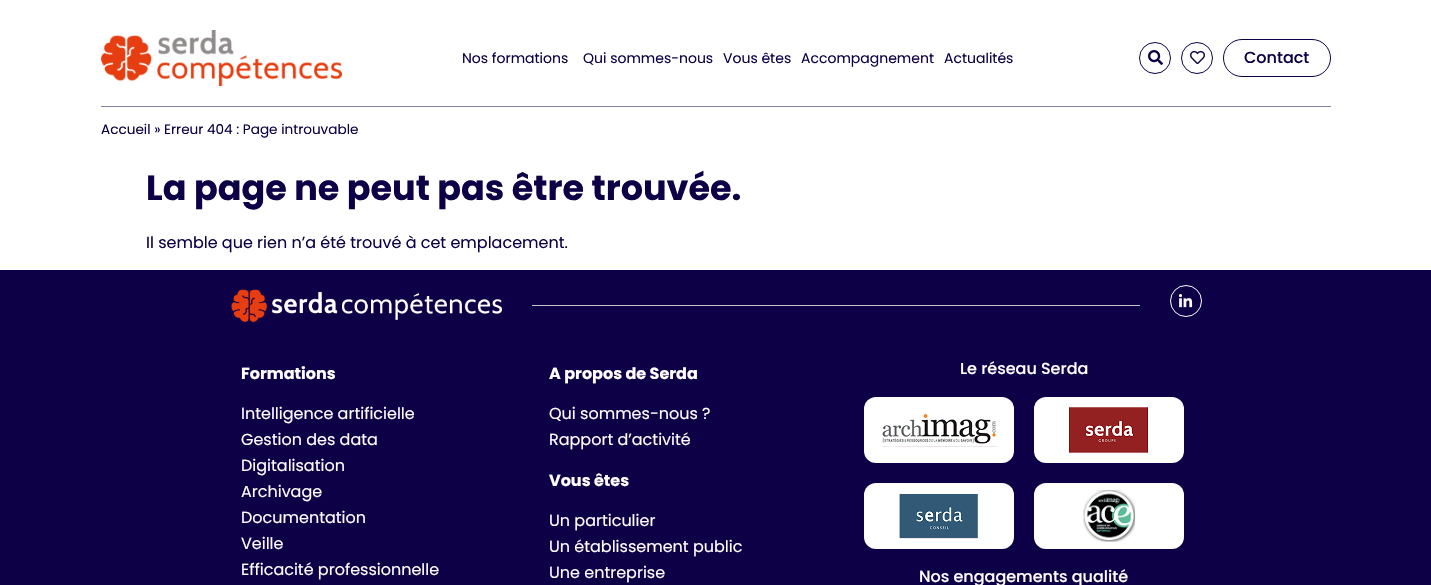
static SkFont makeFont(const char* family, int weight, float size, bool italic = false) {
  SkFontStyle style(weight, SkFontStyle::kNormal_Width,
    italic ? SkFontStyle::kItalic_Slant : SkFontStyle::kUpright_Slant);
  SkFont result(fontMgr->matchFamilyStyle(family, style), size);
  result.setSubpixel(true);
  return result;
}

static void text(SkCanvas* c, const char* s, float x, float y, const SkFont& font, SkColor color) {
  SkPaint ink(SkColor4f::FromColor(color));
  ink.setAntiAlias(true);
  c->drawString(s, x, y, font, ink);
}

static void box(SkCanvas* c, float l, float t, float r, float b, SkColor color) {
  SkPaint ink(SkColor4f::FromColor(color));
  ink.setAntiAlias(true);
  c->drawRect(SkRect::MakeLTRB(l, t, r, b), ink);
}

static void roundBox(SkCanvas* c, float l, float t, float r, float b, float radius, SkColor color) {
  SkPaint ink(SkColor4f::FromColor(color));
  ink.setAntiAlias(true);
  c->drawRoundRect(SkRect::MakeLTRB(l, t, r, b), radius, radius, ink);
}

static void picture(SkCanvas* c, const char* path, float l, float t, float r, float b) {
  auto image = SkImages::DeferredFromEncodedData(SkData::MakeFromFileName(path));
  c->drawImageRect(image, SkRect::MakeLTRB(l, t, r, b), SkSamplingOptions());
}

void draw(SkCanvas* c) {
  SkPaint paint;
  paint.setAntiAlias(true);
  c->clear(0xffffffff);
  box(c, 101, 106, 1331, 107, 0xff8780a3);
  picture(c, "img_01.png", 101, 30, 342, 86);
  SkFont face1 = makeFont("Poppins", 400, 14);
  text(c, "Nos formations", 462, 63, face1, 0xff0e0046);
  text(c, "Qui sommes-nous", 583, 63, face1, 0xff0e0046);
  text(c, "Vous êtes", 723, 63, face1, 0xff0e0046);
  text(c, "Accompagnement", 801, 63, face1, 0xff0e0046);
  text(c, "Actualités", 944, 63, face1, 0xff0e0046);
  paint.setStyle(SkPaint::kStroke_Style);
  paint.setStrokeWidth(1);
  paint.setColor(0xff0e0046);
  c->drawCircle(1155, 58, 15.5f, paint);
  picture(c, "img_02.png", 1148, 50, 1163, 65);
  c->drawCircle(1197, 58, 15.5f, paint);
  picture(c, "img_03.png", 1190, 50, 1205, 64);
  c->drawRoundRect(SkRect::MakeLTRB(1223.5f, 39.5f, 1330.5f, 76.5f), 18.5f, 18.5f, paint);
  SkFont face2 = makeFont("Poppins", 500, 16);
  text(c, "Contact", 1244, 63, face2, 0xff0e0046);
  SkFont face3 = makeFont("Poppins", 400, 13.6f);
  text(c, "Accueil » Erreur 404 : Page introuvable", 101, 134, face3, 0xff0e0046);
  SkFont face4 = makeFont("Poppins", 700, 35);
  text(c, "La page ne peut pas être trouvée.", 146, 200, face4, 0xff0e0046);
  SkFont face5 = makeFont("Poppins", 400, 16);
  text(c, "Il semble que rien n’a été trouvé à cet emplacement.", 146, 248, face5, 0xff0e0046);
  box(c, 0, 270, 1431, 585, 0xff0e0046);
  picture(c, "img_04.png", 231, 289, 502, 322);
  box(c, 532, 305, 1140, 306, 0xffc6c6c6);
  paint.setColor(0xffffffff);
  c->drawCircle(1186, 301, 15.5f, paint);
  picture(c, "img_05.png", 1179, 294, 1193, 308);
  SkFont face6 = makeFont("Poppins", 700, 16);
  text(c, "Formations", 241, 379, face6, 0xffffffff);
  text(c, "Intelligence artificielle", 241, 419, face5, 0xffffffff);
  text(c, "Gestion des data", 241, 445, face5, 0xffffffff);
  text(c, "Digitalisation", 241, 471, face5, 0xffffffff);
  text(c, "Archivage", 241, 497, face5, 0xffffffff);
  text(c, "Documentation", 241, 523, face5, 0xffffffff);
  text(c, "Veille", 241, 549, face5, 0xffffffff);
  text(c, "Efficacité professionnelle", 241, 575, face5, 0xffffffff);
  text(c, "A propos de Serda", 549, 379, face6, 0xffffffff);
  text(c, "Qui sommes-nous ?", 549, 419, face5, 0xffffffff);
  text(c, "Rapport d’activité", 549, 445, face5, 0xffffffff);
  text(c, "Vous êtes", 549, 486, face6, 0xffffffff);
  text(c, "Un particulier", 549, 526, face5, 0xffffffff);
  text(c, "Un établissement public", 549, 552, face5, 0xffffffff);
  text(c, "Une entreprise", 549, 578, face5, 0xffffffff);
  text(c, "Le réseau Serda", 960, 374, face2, 0xffffffff);
  roundBox(c, 864, 397, 1014, 463, 12, 0xffffffff);
  picture(c, "img_06.png", 882, 414, 997, 447);
  roundBox(c, 1034, 397, 1184, 463, 12, 0xffffffff);
  picture(c, "img_07.png", 1069, 407, 1148, 453);
  roundBox(c, 864, 483, 1014, 549, 12, 0xffffffff);
  picture(c, "img_08.png", 899, 494, 978, 539);
  roundBox(c, 1034, 483, 1184, 549, 12, 0xffffffff);
  picture(c, "img_09.png", 1083, 490, 1136, 542);
  text(c, "Nos engagements qualité", 919, 582, face2, 0xffffffff);
}
